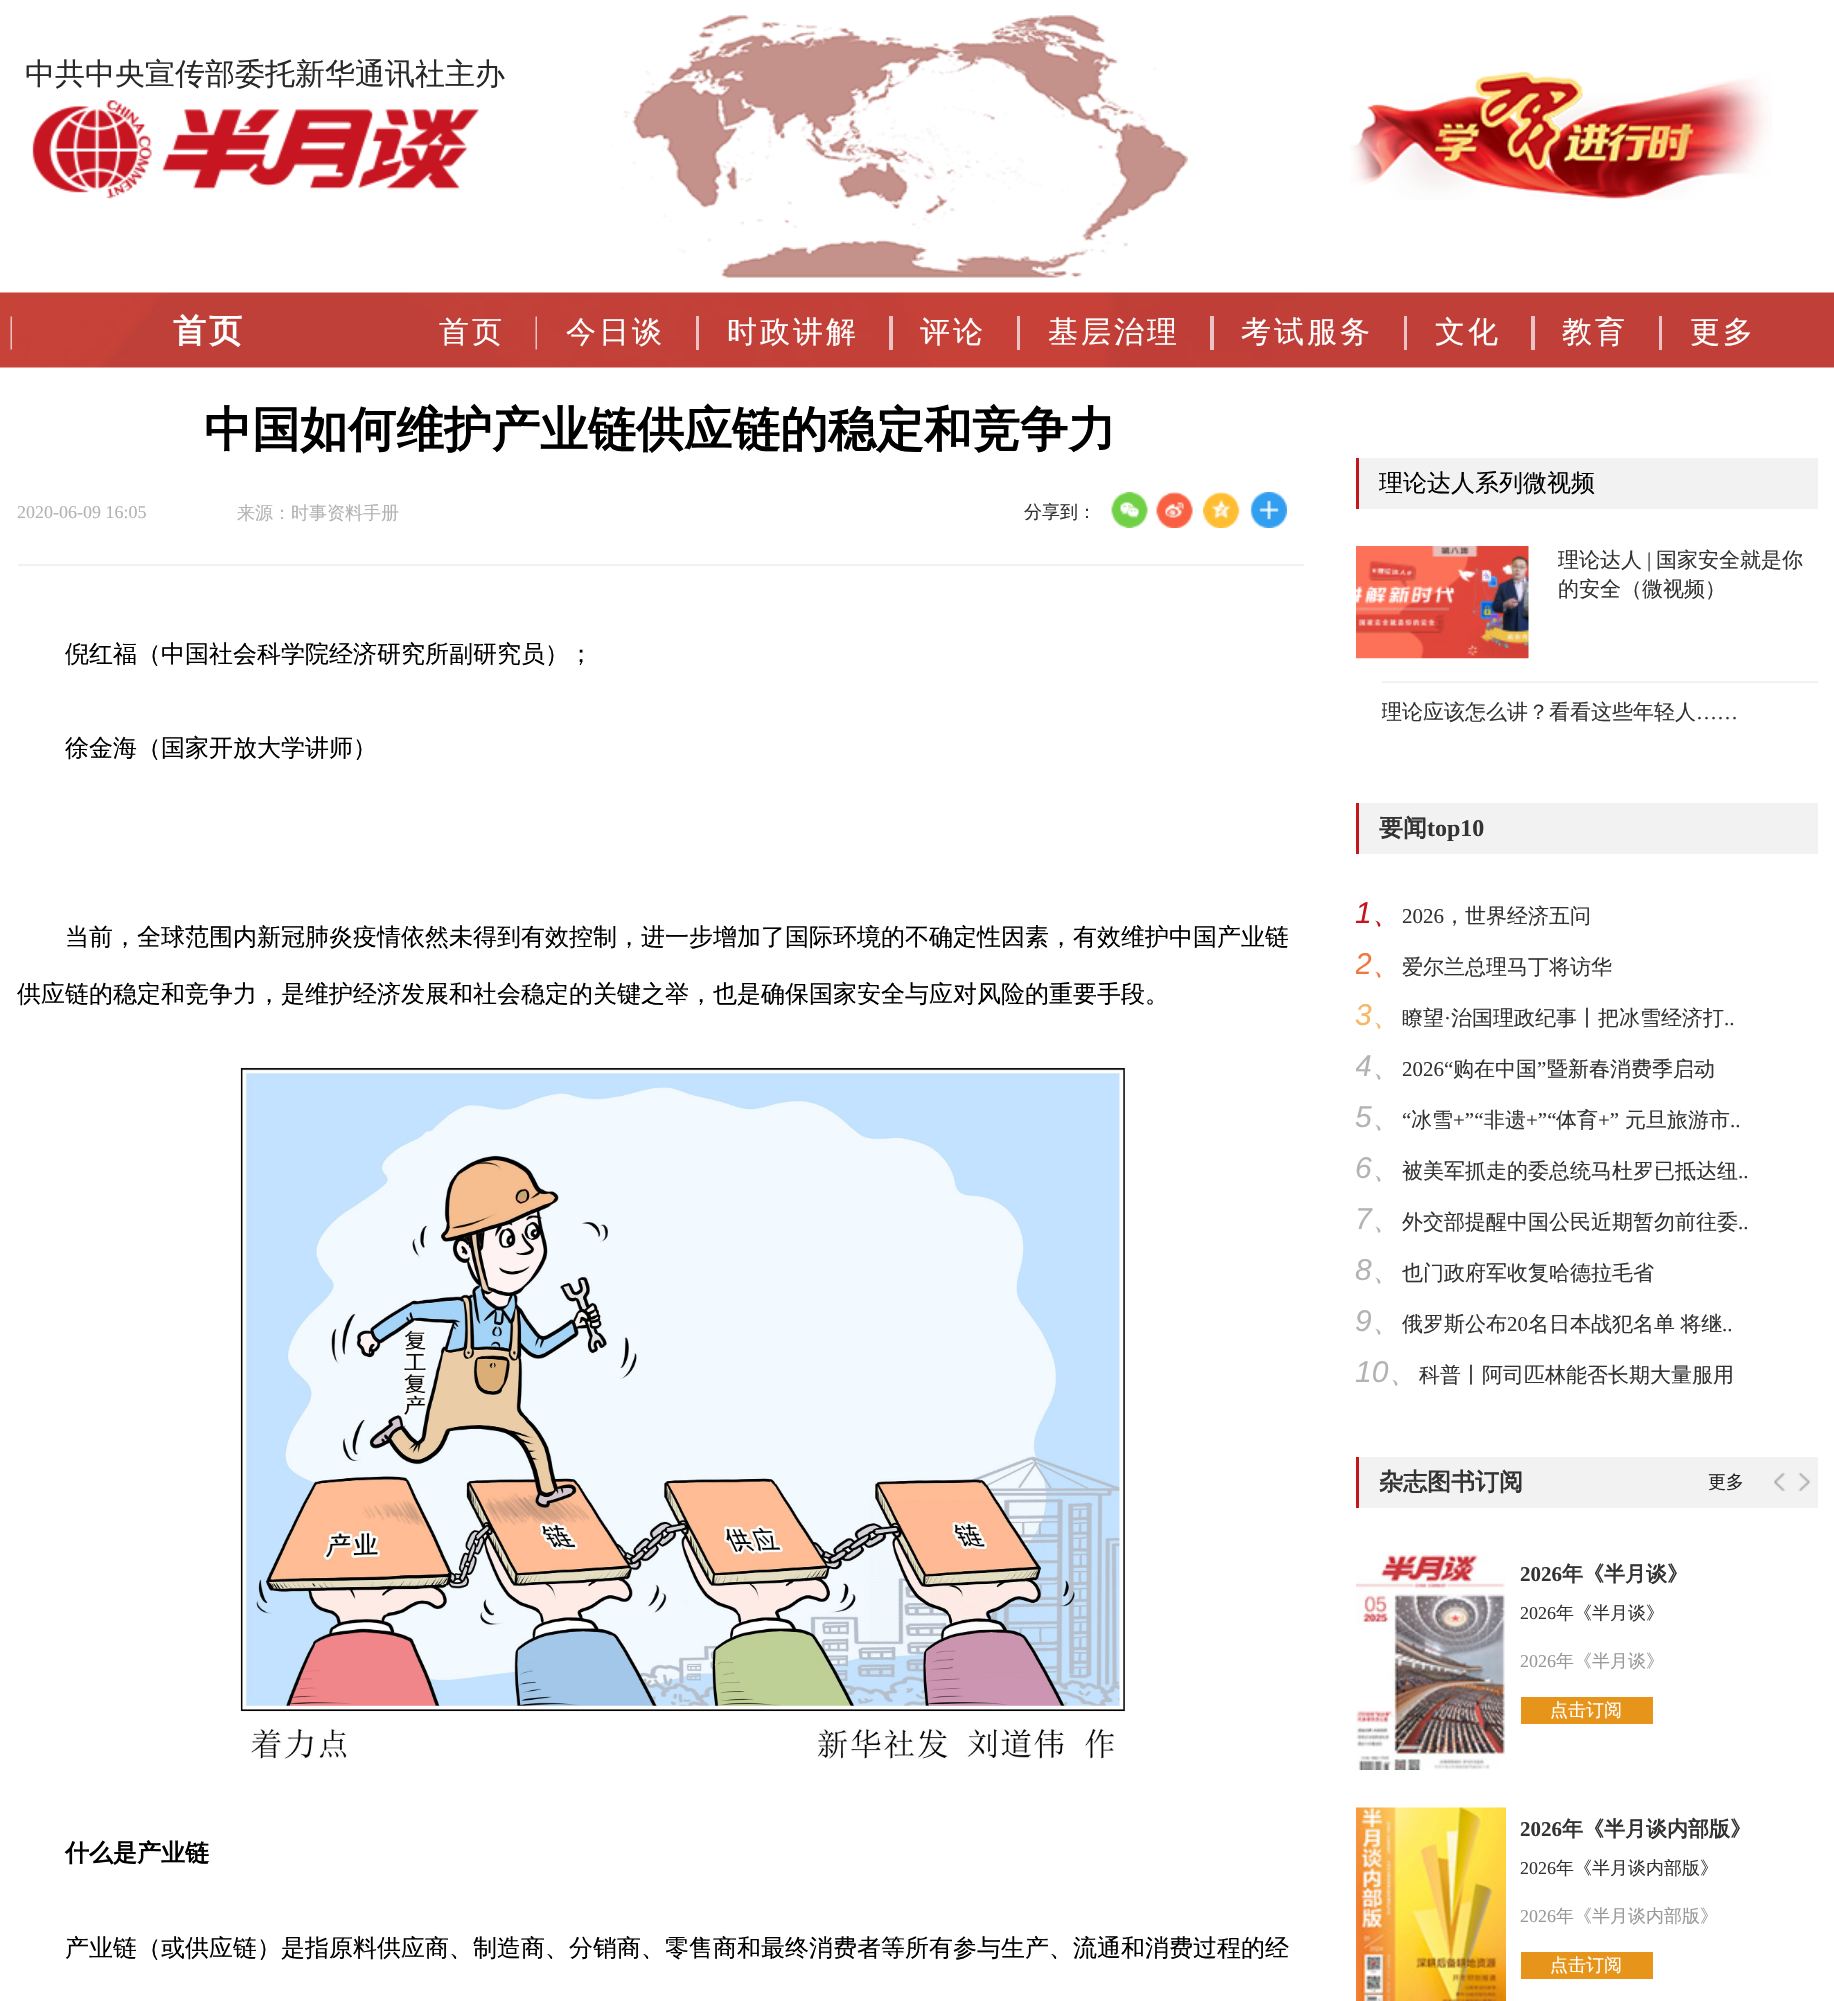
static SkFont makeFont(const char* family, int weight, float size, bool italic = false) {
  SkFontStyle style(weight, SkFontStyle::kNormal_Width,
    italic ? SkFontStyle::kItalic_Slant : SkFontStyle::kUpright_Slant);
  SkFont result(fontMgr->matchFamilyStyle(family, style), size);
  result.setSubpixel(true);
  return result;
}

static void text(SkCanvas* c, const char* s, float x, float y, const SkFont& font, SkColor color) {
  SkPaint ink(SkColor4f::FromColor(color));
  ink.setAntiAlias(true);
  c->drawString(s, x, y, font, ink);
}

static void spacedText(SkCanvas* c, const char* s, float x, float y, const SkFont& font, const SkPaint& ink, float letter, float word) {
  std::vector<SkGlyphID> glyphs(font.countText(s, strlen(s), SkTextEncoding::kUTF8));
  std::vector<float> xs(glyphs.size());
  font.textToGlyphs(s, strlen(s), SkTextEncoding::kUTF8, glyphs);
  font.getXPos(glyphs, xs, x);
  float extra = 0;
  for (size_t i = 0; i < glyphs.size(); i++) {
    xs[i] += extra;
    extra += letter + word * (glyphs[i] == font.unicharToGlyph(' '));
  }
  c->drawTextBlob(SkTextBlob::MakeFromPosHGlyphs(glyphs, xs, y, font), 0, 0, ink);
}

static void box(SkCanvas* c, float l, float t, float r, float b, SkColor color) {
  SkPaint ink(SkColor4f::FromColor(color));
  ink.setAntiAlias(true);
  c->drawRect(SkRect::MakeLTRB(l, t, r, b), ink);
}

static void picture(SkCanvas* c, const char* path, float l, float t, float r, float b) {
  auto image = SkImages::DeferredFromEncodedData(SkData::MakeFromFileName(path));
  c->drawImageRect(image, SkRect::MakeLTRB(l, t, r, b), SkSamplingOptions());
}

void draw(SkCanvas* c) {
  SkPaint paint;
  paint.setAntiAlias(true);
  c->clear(0xffffffff);
  SkFont face1 = makeFont("WenQuanYi Zen Hei", 500, 30);
  text(c, "中共中央宣传部委托新华通讯社主办", 25, 84, face1, 0xff282828);
  picture(c, "img_01.png", 32, 100, 479, 199);
  picture(c, "img_02.png", 611, 15, 1188, 278);
  picture(c, "img_03.png", 1350, 71, 1772, 200);
  picture(c, "img_04.png", 0, 292, 1834, 368);
  picture(c, "img_05.png", 10, 316, 12, 350);
  SkFont face2 = makeFont("WenQuanYi Zen Hei", 700, 33);
  paint.setColor(0xffffffff);
  spacedText(c, "首页", 173, 342, face2, paint, 3, 0);
  picture(c, "img_06.png", 535, 316, 537, 350);
  spacedText(c, "首页", 439, 342, face1, paint, 3, 0);
  spacedText(c, "今日谈", 566, 342, face1, paint, 3, 0);
  box(c, 696, 316, 699, 350, 0xffecc3c4);
  spacedText(c, "时政讲解", 727, 342, face1, paint, 3, 0);
  box(c, 889, 316, 893, 350, 0xffecc3c4);
  spacedText(c, "评论", 920, 342, face1, paint, 3, 0);
  box(c, 1017, 316, 1020, 350, 0xffecc3c4);
  spacedText(c, "基层治理", 1048, 342, face1, paint, 3, 0);
  box(c, 1210, 316, 1214, 350, 0xffecc3c4);
  spacedText(c, "考试服务", 1241, 342, face1, paint, 3, 0);
  box(c, 1404, 316, 1407, 350, 0xffecc3c4);
  spacedText(c, "文化", 1435, 342, face1, paint, 3, 0);
  box(c, 1531, 316, 1535, 350, 0xffecc3c4);
  spacedText(c, "教育", 1562, 342, face1, paint, 3, 0);
  box(c, 1659, 316, 1662, 350, 0xffecc3c4);
  spacedText(c, "更多", 1690, 342, face1, paint, 3, 0);
  SkFont face3 = makeFont("WenQuanYi Zen Hei", 700, 48);
  text(c, "中国如何维护产业链供应链的稳定和竞争力", 204, 446, face3, 0xff000000);
  box(c, 18, 564, 1304, 566, 0xfff2f2f2);
  SkFont face4 = makeFont("Liberation Serif", 400, 18);
  text(c, "2020-06-09 16:05", 17, 518, face4, 0xffb3b3b3);
  SkFont face5 = makeFont("WenQuanYi Zen Hei", 500, 18);
  text(c, "来源：时事资料手册", 237, 519, face5, 0xffb3b3b3);
  text(c, "分享到：", 1024, 518, face5, 0xff333333);
  picture(c, "img_07.png", 1111, 492, 1148, 528);
  picture(c, "img_08.png", 1156, 492, 1193, 528);
  picture(c, "img_09.png", 1203, 492, 1240, 528);
  picture(c, "img_10.png", 1250, 492, 1287, 528);
  SkFont face6 = makeFont("WenQuanYi Zen Hei", 500, 24);
  text(c, "倪红福（中国社会科学院经济研究所副研究员）；", 65, 662, face6, 0xff000000);
  text(c, "徐金海（国家开放大学讲师）", 65, 756, face6, 0xff000000);
  text(c, "当前，全球范围内新冠肺炎疫情依然未得到有效控制，进一步增加了国际环境的不确定性因素，有效维护中国产业链", 65, 945, face6, 0xff000000);
  text(c, "供应链的稳定和竞争力，是维护经济发展和社会稳定的关键之举，也是确保国家安全与应对风险的重要手段。", 17, 1002, face6, 0xff000000);
  picture(c, "img_11.png", 240, 1067, 1126, 1759);
  SkFont face7 = makeFont("WenQuanYi Zen Hei", 700, 24);
  text(c, "什么是产业链", 65, 1861, face7, 0xff000000);
  text(c, "产业链（或供应链）是指原料供应商、制造商、分销商、零售商和最终消费者等所有参与生产、流通和消费过程的经", 65, 1956, face6, 0xff000000);
  box(c, 1359, 458, 1818, 509, 0xfff2f2f2);
  box(c, 1356, 458, 1359, 509, 0xffc4161d);
  text(c, "理论达人系列微视频", 1379, 491, face6, 0xff000000);
  picture(c, "img_12.png", 1356, 546, 1529, 659);
  SkFont face8 = makeFont("WenQuanYi Zen Hei", 500, 21);
  text(c, "理论达人", 1558, 567, face8, 0xff333333);
  SkFont face9 = makeFont("Liberation Serif", 400, 21);
  text(c, "|", 1647, 567, face9, 0xff333333);
  text(c, "国家安全就是你", 1656, 567, face8, 0xff333333);
  text(c, "的安全（微视频）", 1558, 596, face8, 0xff333333);
  box(c, 1382, 681, 1818, 683, 0xfff2f2f2);
  c->save();
  c->clipRect(SkRect::MakeLTRB(1382, 683, 1818, 743));
  text(c, "理论应该怎么讲？看看这些年轻人", 1381, 719, face8, 0xff333333);
  c->restore();
  text(c, "……", 1696, 719, face9, 0xff333333);
  box(c, 1359, 803, 1818, 854, 0xfff2f2f2);
  box(c, 1356, 803, 1359, 854, 0xffc4161d);
  text(c, "要闻", 1379, 836, face7, 0xff333333);
  SkFont face10 = makeFont("Liberation Serif", 700, 24);
  text(c, "top10", 1427, 836, face10, 0xff333333);
  SkFont face11 = makeFont("Liberation Sans", 400, 30, true);
  text(c, "1", 1355, 923, face11, 0xffc4161d);
  SkFont face12 = makeFont("WenQuanYi Zen Hei", 500, 30, true);
  text(c, "、", 1372, 923, face12, 0xffc4161d);
  text(c, "2026", 1402, 923, face9, 0xff333333);
  text(c, "，世界经济五问", 1444, 923, face8, 0xff333333);
  c->save();
  c->clipRect(SkRect::MakeLTRB(1356, 938, 1818, 989));
  text(c, "2", 1355, 974, face11, 0xfff2763f);
  c->restore();
  text(c, "、", 1372, 974, face12, 0xfff2763f);
  text(c, "爱尔兰总理马丁将访华", 1402, 974, face8, 0xff333333);
  text(c, "3", 1355, 1025, face11, 0xfff6b864);
  text(c, "瞭望", 1402, 1025, face8, 0xff333333);
  text(c, "·", 1444, 1025, face9, 0xff333333);
  text(c, "治国理政纪事丨把冰雪经济打", 1451, 1025, face8, 0xff333333);
  text(c, "、", 1372, 1025, face12, 0xfff6b864);
  text(c, "..", 1724, 1025, face9, 0xff333333);
  c->save();
  c->clipRect(SkRect::MakeLTRB(1356, 1040, 1818, 1091));
  text(c, "4", 1355, 1076, face11, 0xffb3b3b3);
  c->restore();
  text(c, "2026“", 1402, 1076, face9, 0xff333333);
  text(c, "购在中国", 1453, 1076, face8, 0xff333333);
  text(c, "”", 1537, 1076, face9, 0xff333333);
  text(c, "暨新春消费季启动", 1547, 1076, face8, 0xff333333);
  text(c, "、", 1372, 1076, face12, 0xffb3b3b3);
  text(c, "5", 1355, 1127, face11, 0xffb3b3b3);
  text(c, "“", 1402, 1127, face9, 0xff333333);
  text(c, "冰雪", 1411, 1127, face8, 0xff333333);
  text(c, "+”“", 1453, 1127, face9, 0xff333333);
  text(c, "非遗", 1484, 1127, face8, 0xff333333);
  text(c, "+”“", 1526, 1127, face9, 0xff333333);
  text(c, "体育", 1556, 1127, face8, 0xff333333);
  text(c, "+”", 1598, 1127, face9, 0xff333333);
  text(c, "元旦旅游市", 1625, 1127, face8, 0xff333333);
  text(c, "、", 1372, 1127, face12, 0xffb3b3b3);
  text(c, "..", 1730, 1127, face9, 0xff333333);
  text(c, "6", 1355, 1178, face11, 0xffb3b3b3);
  text(c, "、", 1372, 1178, face12, 0xffb3b3b3);
  text(c, "被美军抓走的委总统马杜罗已抵达纽", 1402, 1178, face8, 0xff333333);
  text(c, "..", 1738, 1178, face9, 0xff333333);
  text(c, "7", 1355, 1229, face11, 0xffb3b3b3);
  text(c, "、", 1372, 1229, face12, 0xffb3b3b3);
  text(c, "外交部提醒中国公民近期暂勿前往委", 1402, 1229, face8, 0xff333333);
  text(c, "..", 1738, 1229, face9, 0xff333333);
  text(c, "8", 1355, 1280, face11, 0xffb3b3b3);
  text(c, "、", 1372, 1280, face12, 0xffb3b3b3);
  text(c, "也门政府军收复哈德拉毛省", 1402, 1280, face8, 0xff333333);
  text(c, "9", 1355, 1331, face11, 0xffb3b3b3);
  text(c, "、", 1372, 1331, face12, 0xffb3b3b3);
  text(c, "俄罗斯公布", 1402, 1331, face8, 0xff333333);
  text(c, "20", 1507, 1331, face9, 0xff333333);
  paint.setColor(0xff333333);
  spacedText(c, "名日本战犯名单 将继", 1528, 1331, face8, paint, 0, -1);
  text(c, "..", 1722, 1331, face9, 0xff333333);
  text(c, "10", 1355, 1382, face11, 0xffb3b3b3);
  text(c, "、", 1389, 1382, face12, 0xffb3b3b3);
  text(c, "科普丨阿司匹林能否长期大量服用", 1419, 1382, face8, 0xff333333);
  box(c, 1359, 1457, 1818, 1508, 0xfff2f2f2);
  box(c, 1356, 1457, 1359, 1508, 0xffc4161d);
  text(c, "杂志图书订阅", 1379, 1490, face7, 0xff333333);
  text(c, "更多", 1708, 1488, face5, 0xff222222);
  picture(c, "img_13.png", 1774, 1473, 1786, 1491);
  picture(c, "img_14.png", 1798, 1473, 1811, 1491);
  picture(c, "img_15.png", 1356, 1552, 1506, 1770);
  SkFont face13 = makeFont("Liberation Serif", 700, 21);
  text(c, "2026", 1520, 1581, face13, 0xff333333);
  SkFont face14 = makeFont("WenQuanYi Zen Hei", 700, 21);
  text(c, "年《半月谈》", 1562, 1581, face14, 0xff333333);
  text(c, "2026", 1520, 1619, face4, 0xff333333);
  text(c, "年《半月谈》", 1556, 1619, face5, 0xff333333);
  text(c, "2026", 1520, 1667, face4, 0xff999999);
  text(c, "年《半月谈》", 1556, 1667, face5, 0xff999999);
  box(c, 1521, 1697, 1653, 1724, 0xffe7951a);
  text(c, "点击订阅", 1550, 1716, face5, 0xffffffff);
  picture(c, "img_16.png", 1356, 1807, 1506, 2001);
  text(c, "2026", 1520, 1836, face13, 0xff333333);
  text(c, "年《半月谈内部版》", 1562, 1836, face14, 0xff333333);
  text(c, "2026", 1520, 1874, face4, 0xff333333);
  text(c, "年《半月谈内部版》", 1556, 1874, face5, 0xff333333);
  text(c, "2026", 1520, 1922, face4, 0xff999999);
  text(c, "年《半月谈内部版》", 1556, 1922, face5, 0xff999999);
  box(c, 1521, 1952, 1653, 1979, 0xffe7951a);
  text(c, "点击订阅", 1550, 1971, face5, 0xffffffff);
}
